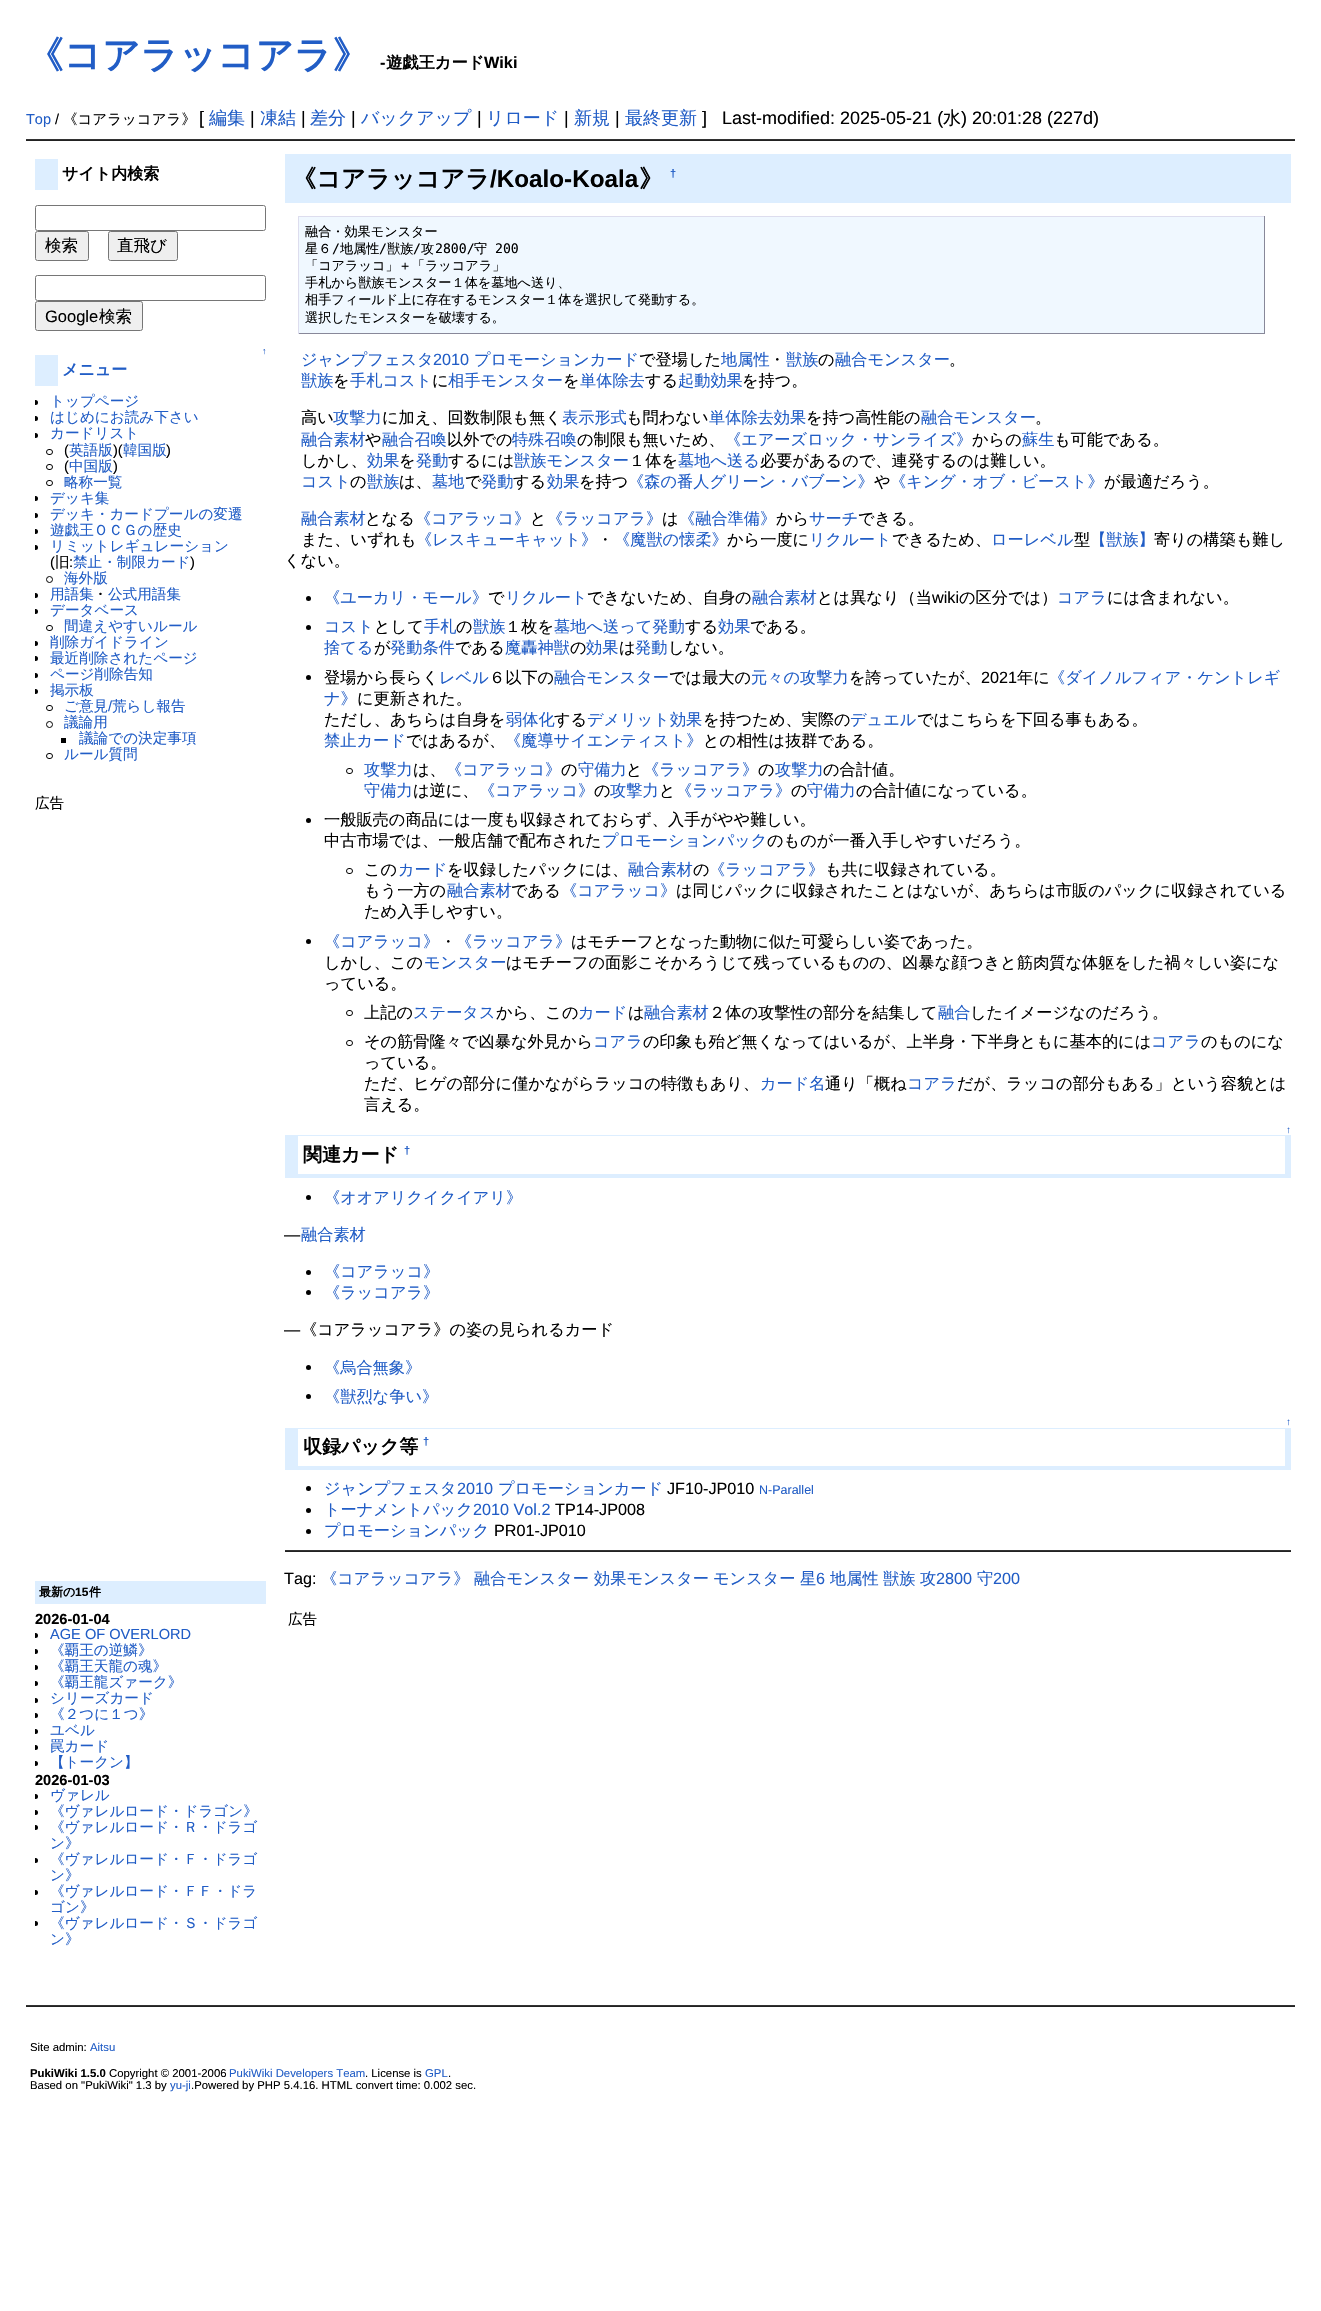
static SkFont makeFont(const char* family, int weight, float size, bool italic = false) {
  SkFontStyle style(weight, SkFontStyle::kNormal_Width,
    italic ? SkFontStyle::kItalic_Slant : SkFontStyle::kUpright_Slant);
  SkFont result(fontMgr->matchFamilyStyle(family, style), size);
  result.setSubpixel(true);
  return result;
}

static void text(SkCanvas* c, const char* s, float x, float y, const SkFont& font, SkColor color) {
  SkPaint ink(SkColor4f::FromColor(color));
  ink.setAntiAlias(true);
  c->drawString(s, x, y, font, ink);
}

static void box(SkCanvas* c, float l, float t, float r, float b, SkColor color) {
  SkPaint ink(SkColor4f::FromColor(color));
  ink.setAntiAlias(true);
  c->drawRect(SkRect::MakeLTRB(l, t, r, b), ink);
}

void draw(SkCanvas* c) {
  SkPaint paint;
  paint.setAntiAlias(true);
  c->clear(0xffffffff);
  SkFont face1 = makeFont("WenQuanYi Zen Hei", 700, 37.5f);
  text(c, "《コアラッコアラ》", 26, 68, face1, 0xff215dc6);
  SkFont face2 = makeFont("Liberation Sans", 700, 16.25f);
  text(c, "-", 380, 68, face2, 0xff000000);
  SkFont face3 = makeFont("WenQuanYi Zen Hei", 700, 16.25f);
  text(c, "遊戯王カード", 386, 68, face3, 0xff000000);
  text(c, "Wiki", 484, 68, face2, 0xff000000);
  SkFont face4 = makeFont("Liberation Sans", 400, 14.5f);
  text(c, "Top", 26, 124, face4, 0xff215dc6);
  text(c, "/", 55, 124, face4, 0xff000000);
  SkFont face5 = makeFont("WenQuanYi Zen Hei", 500, 14.5f);
  text(c, "《コアラッコアラ》", 63, 124, face5, 0xff000000);
  SkFont face6 = makeFont("Liberation Sans", 400, 18);
  text(c, "[", 199, 124, face6, 0xff000000);
  SkFont face7 = makeFont("WenQuanYi Zen Hei", 500, 18);
  text(c, "編集", 209, 124, face7, 0xff215dc6);
  text(c, "|", 250, 124, face6, 0xff000000);
  text(c, "凍結", 260, 124, face7, 0xff215dc6);
  text(c, "|", 301, 124, face6, 0xff000000);
  text(c, "差分", 310, 124, face7, 0xff215dc6);
  text(c, "|", 351, 124, face6, 0xff000000);
  text(c, "バックアップ", 361, 124, face7, 0xff215dc6);
  text(c, "|", 477, 124, face6, 0xff000000);
  text(c, "リロード", 486, 124, face7, 0xff215dc6);
  text(c, "|", 564, 124, face6, 0xff000000);
  text(c, "新規", 574, 124, face7, 0xff215dc6);
  text(c, "|", 615, 124, face6, 0xff000000);
  text(c, "最終更新", 625, 124, face7, 0xff215dc6);
  text(c, "]   Last-modified: 2025-05-21 (", 702, 124, face6, 0xff000000);
  text(c, "水", 943, 124, face7, 0xff000000);
  text(c, ") 20:01:28 (227d)", 961, 124, face6, 0xff000000);
  box(c, 26, 139, 1295, 140, 0xff333333);
  box(c, 26, 140, 1295, 141, 0xff222222);
  box(c, 35, 159, 58, 190, 0xffddeeff);
  SkFont face8 = makeFont("WenQuanYi Zen Hei", 700, 16);
  text(c, "サイト内検索", 62, 179, face8, 0xff000000);
  paint.setStyle(SkPaint::kStroke_Style);
  paint.setStrokeWidth(1);
  paint.setColor(0xff767676);
  c->drawRoundRect(SkRect::MakeLTRB(35.5f, 205.5f, 265.5f, 230.5f), 2, 2, paint);
  paint.setStyle(SkPaint::kFill_Style);
  paint.setColor(0xffefefef);
  c->drawRoundRect(SkRect::MakeLTRB(35.5f, 231.5f, 88.5f, 260.5f), 2, 2, paint);
  paint.setStyle(SkPaint::kStroke_Style);
  paint.setColor(0xff767676);
  c->drawRoundRect(SkRect::MakeLTRB(35.5f, 231.5f, 88.5f, 260.5f), 2, 2, paint);
  SkFont face9 = makeFont("WenQuanYi Zen Hei", 500, 16.5f);
  text(c, "検索", 45, 251, face9, 0xff000000);
  paint.setStyle(SkPaint::kFill_Style);
  paint.setColor(0xffefefef);
  c->drawRoundRect(SkRect::MakeLTRB(108.5f, 231.5f, 177.5f, 260.5f), 2, 2, paint);
  paint.setStyle(SkPaint::kStroke_Style);
  paint.setColor(0xff767676);
  c->drawRoundRect(SkRect::MakeLTRB(108.5f, 231.5f, 177.5f, 260.5f), 2, 2, paint);
  text(c, "直飛び", 117, 251, face9, 0xff000000);
  c->drawRoundRect(SkRect::MakeLTRB(35.5f, 275.5f, 265.5f, 300.5f), 2, 2, paint);
  paint.setStyle(SkPaint::kFill_Style);
  paint.setColor(0xffefefef);
  c->drawRoundRect(SkRect::MakeLTRB(35.5f, 301.5f, 142.5f, 330.5f), 2, 2, paint);
  paint.setStyle(SkPaint::kStroke_Style);
  paint.setColor(0xff767676);
  c->drawRoundRect(SkRect::MakeLTRB(35.5f, 301.5f, 142.5f, 330.5f), 2, 2, paint);
  SkFont face10 = makeFont("Liberation Sans", 400, 16.5f);
  text(c, "Google", 45, 322, face10, 0xff000000);
  text(c, "検索", 99, 322, face9, 0xff000000);
  SkFont face11 = makeFont("Liberation Sans", 400, 9);
  text(c, "↑", 262, 354, face11, 0xff215dc6);
  box(c, 35, 355, 58, 386, 0xffddeeff);
  text(c, "メニュー", 62, 375, face8, 0xff215dc6);
  c->save();
  c->clipRect(SkRect::MakeLTRB(35, 159, 266, 1948));
  paint.setStyle(SkPaint::kFill_Style);
  paint.setColor(0xff000000);
  c->drawCircle(35.5f, 402.5f, 2.5f, paint);
  c->restore();
  SkFont face12 = makeFont("WenQuanYi Zen Hei", 500, 14.6f);
  text(c, "トップページ", 50, 406, face12, 0xff215dc6);
  c->save();
  c->clipRect(SkRect::MakeLTRB(35, 159, 266, 1948));
  c->drawCircle(35.5f, 418.5f, 2.5f, paint);
  c->restore();
  text(c, "はじめにお読み下さい", 50, 422, face12, 0xff215dc6);
  c->save();
  c->clipRect(SkRect::MakeLTRB(35, 159, 266, 1948));
  c->drawCircle(35.5f, 435.5f, 2.5f, paint);
  c->restore();
  text(c, "カードリスト", 50, 438, face12, 0xff215dc6);
  paint.setStyle(SkPaint::kStroke_Style);
  c->drawRoundRect(SkRect::MakeLTRB(46.5f, 449.5f, 52.5f, 454.5f), 2.5f, 2.5f, paint);
  SkFont face13 = makeFont("Liberation Sans", 400, 14.6f);
  text(c, "(", 64, 455, face13, 0xff000000);
  text(c, "英語版", 69, 455, face12, 0xff215dc6);
  text(c, ")(", 113, 455, face13, 0xff000000);
  text(c, "韓国版", 123, 455, face12, 0xff215dc6);
  text(c, ")", 166, 455, face13, 0xff000000);
  c->drawRoundRect(SkRect::MakeLTRB(46.5f, 464.5f, 52.5f, 469.5f), 2.5f, 2.5f, paint);
  text(c, "(", 64, 471, face13, 0xff000000);
  text(c, "中国版", 69, 471, face12, 0xff215dc6);
  text(c, ")", 113, 471, face13, 0xff000000);
  c->drawRoundRect(SkRect::MakeLTRB(46.5f, 480.5f, 52.5f, 485.5f), 2.5f, 2.5f, paint);
  text(c, "略称一覧", 64, 487, face12, 0xff215dc6);
  c->save();
  c->clipRect(SkRect::MakeLTRB(35, 159, 266, 1948));
  paint.setStyle(SkPaint::kFill_Style);
  c->drawCircle(35.5f, 498.5f, 2.5f, paint);
  c->restore();
  text(c, "デッキ集", 50, 503, face12, 0xff215dc6);
  c->save();
  c->clipRect(SkRect::MakeLTRB(35, 159, 266, 1948));
  c->drawCircle(35.5f, 515.5f, 2.5f, paint);
  c->restore();
  text(c, "デッキ・カードプールの変遷", 50, 519, face12, 0xff215dc6);
  c->save();
  c->clipRect(SkRect::MakeLTRB(35, 159, 266, 1948));
  c->drawCircle(35.5f, 531.5f, 2.5f, paint);
  c->restore();
  text(c, "遊戯王ＯＣＧの歴史", 50, 535, face12, 0xff215dc6);
  c->save();
  c->clipRect(SkRect::MakeLTRB(35, 159, 266, 1948));
  c->drawCircle(35.5f, 547.5f, 2.5f, paint);
  c->restore();
  text(c, "リミットレギュレーション", 50, 551, face12, 0xff215dc6);
  text(c, "(", 50, 567, face13, 0xff000000);
  text(c, "旧", 55, 567, face12, 0xff000000);
  text(c, ":", 69, 567, face13, 0xff000000);
  text(c, "禁止・制限カード", 73, 567, face12, 0xff215dc6);
  text(c, ")", 190, 567, face13, 0xff000000);
  paint.setStyle(SkPaint::kStroke_Style);
  c->drawCircle(49.5f, 579.5f, 3, paint);
  text(c, "海外版", 64, 583, face12, 0xff215dc6);
  c->save();
  c->clipRect(SkRect::MakeLTRB(35, 159, 266, 1948));
  paint.setStyle(SkPaint::kFill_Style);
  c->drawCircle(35.5f, 595.5f, 2.5f, paint);
  c->restore();
  text(c, "用語集", 50, 599, face12, 0xff215dc6);
  text(c, "・", 93, 599, face12, 0xff000000);
  text(c, "公式用語集", 108, 599, face12, 0xff215dc6);
  c->save();
  c->clipRect(SkRect::MakeLTRB(35, 159, 266, 1948));
  c->drawCircle(35.5f, 611.5f, 2.5f, paint);
  c->restore();
  text(c, "データベース", 50, 615, face12, 0xff215dc6);
  paint.setStyle(SkPaint::kStroke_Style);
  c->drawRoundRect(SkRect::MakeLTRB(46.5f, 625.5f, 52.5f, 630.5f), 2.5f, 2.5f, paint);
  text(c, "間違えやすいルール", 64, 631, face12, 0xff215dc6);
  c->save();
  c->clipRect(SkRect::MakeLTRB(35, 159, 266, 1948));
  paint.setStyle(SkPaint::kFill_Style);
  c->drawCircle(35.5f, 643.5f, 2.5f, paint);
  c->restore();
  text(c, "削除ガイドライン", 50, 647, face12, 0xff215dc6);
  c->save();
  c->clipRect(SkRect::MakeLTRB(35, 159, 266, 1948));
  c->drawCircle(35.5f, 658.5f, 2.5f, paint);
  c->restore();
  text(c, "最近削除されたページ", 50, 663, face12, 0xff215dc6);
  c->save();
  c->clipRect(SkRect::MakeLTRB(35, 159, 266, 1948));
  c->drawCircle(35.5f, 675.5f, 2.5f, paint);
  c->restore();
  text(c, "ページ削除告知", 50, 679, face12, 0xff215dc6);
  c->save();
  c->clipRect(SkRect::MakeLTRB(35, 159, 266, 1948));
  c->drawCircle(35.5f, 691.5f, 2.5f, paint);
  c->restore();
  text(c, "掲示板", 50, 695, face12, 0xff215dc6);
  paint.setStyle(SkPaint::kStroke_Style);
  c->drawRoundRect(SkRect::MakeLTRB(46.5f, 705.5f, 52.5f, 710.5f), 2.5f, 2.5f, paint);
  text(c, "ご意見", 64, 711, face12, 0xff215dc6);
  text(c, "/", 108, 711, face13, 0xff215dc6);
  text(c, "荒らし報告", 112, 711, face12, 0xff215dc6);
  c->drawCircle(49.5f, 724.5f, 3, paint);
  text(c, "議論用", 64, 727, face12, 0xff215dc6);
  box(c, 61, 738, 66, 743, 0xff000000);
  text(c, "議論での決定事項", 79, 743, face12, 0xff215dc6);
  c->drawRoundRect(SkRect::MakeLTRB(46.5f, 753.5f, 52.5f, 758.5f), 2.5f, 2.5f, paint);
  text(c, "ルール質問", 64, 759, face12, 0xff215dc6);
  text(c, "広告", 35, 808, face12, 0xff000000);
  box(c, 35, 1581, 266, 1604, 0xffddeeff);
  SkFont face14 = makeFont("WenQuanYi Zen Hei", 700, 12);
  text(c, "最新の", 39, 1596, face14, 0xff000000);
  SkFont face15 = makeFont("Liberation Sans", 700, 12);
  text(c, "15", 75, 1596, face15, 0xff000000);
  text(c, "件", 89, 1596, face14, 0xff000000);
  SkFont face16 = makeFont("Liberation Sans", 700, 14.6f);
  text(c, "2026-01-04", 35, 1624, face16, 0xff000000);
  c->save();
  c->clipRect(SkRect::MakeLTRB(35, 159, 266, 1948));
  paint.setStyle(SkPaint::kFill_Style);
  c->drawCircle(35.5f, 1635.5f, 2.5f, paint);
  c->restore();
  text(c, "AGE OF OVERLORD", 50, 1639, face13, 0xff215dc6);
  c->save();
  c->clipRect(SkRect::MakeLTRB(35, 159, 266, 1948));
  c->drawCircle(35.5f, 1651.5f, 2.5f, paint);
  c->restore();
  text(c, "《覇王の逆鱗》", 50, 1655, face12, 0xff215dc6);
  c->save();
  c->clipRect(SkRect::MakeLTRB(35, 159, 266, 1948));
  c->drawCircle(35.5f, 1667.5f, 2.5f, paint);
  c->restore();
  text(c, "《覇王天龍の魂》", 50, 1671, face12, 0xff215dc6);
  c->save();
  c->clipRect(SkRect::MakeLTRB(35, 159, 266, 1948));
  c->drawCircle(35.5f, 1683.5f, 2.5f, paint);
  c->restore();
  text(c, "《覇王龍ズァーク》", 50, 1687, face12, 0xff215dc6);
  c->save();
  c->clipRect(SkRect::MakeLTRB(35, 159, 266, 1948));
  c->drawCircle(35.5f, 1700.5f, 2.5f, paint);
  c->restore();
  text(c, "シリーズカード", 50, 1703, face12, 0xff215dc6);
  c->save();
  c->clipRect(SkRect::MakeLTRB(35, 159, 266, 1948));
  c->drawCircle(35.5f, 1715.5f, 2.5f, paint);
  c->restore();
  text(c, "《２つに１つ》", 50, 1719, face12, 0xff215dc6);
  c->save();
  c->clipRect(SkRect::MakeLTRB(35, 159, 266, 1948));
  c->drawCircle(35.5f, 1731.5f, 2.5f, paint);
  c->restore();
  text(c, "ユベル", 50, 1735, face12, 0xff215dc6);
  c->save();
  c->clipRect(SkRect::MakeLTRB(35, 159, 266, 1948));
  c->drawCircle(35.5f, 1747.5f, 2.5f, paint);
  c->restore();
  text(c, "罠カード", 50, 1751, face12, 0xff215dc6);
  c->save();
  c->clipRect(SkRect::MakeLTRB(35, 159, 266, 1948));
  c->drawCircle(35.5f, 1763.5f, 2.5f, paint);
  c->restore();
  text(c, "【トークン】", 50, 1767, face12, 0xff215dc6);
  text(c, "2026-01-03", 35, 1785, face16, 0xff000000);
  c->save();
  c->clipRect(SkRect::MakeLTRB(35, 159, 266, 1948));
  c->drawCircle(35.5f, 1796.5f, 2.5f, paint);
  c->restore();
  text(c, "ヴァレル", 50, 1800, face12, 0xff215dc6);
  c->save();
  c->clipRect(SkRect::MakeLTRB(35, 159, 266, 1948));
  c->drawCircle(35.5f, 1812.5f, 2.5f, paint);
  c->restore();
  text(c, "《ヴァレルロード・ドラゴン》", 50, 1816, face12, 0xff215dc6);
  c->save();
  c->clipRect(SkRect::MakeLTRB(35, 159, 266, 1948));
  c->drawCircle(35.5f, 1827.5f, 2.5f, paint);
  c->restore();
  text(c, "《ヴァレルロード・Ｒ・ドラゴ", 50, 1832, face12, 0xff215dc6);
  text(c, "ン》", 50, 1848, face12, 0xff215dc6);
  c->save();
  c->clipRect(SkRect::MakeLTRB(35, 159, 266, 1948));
  c->drawCircle(35.5f, 1860.5f, 2.5f, paint);
  c->restore();
  text(c, "《ヴァレルロード・Ｆ・ドラゴ", 50, 1864, face12, 0xff215dc6);
  text(c, "ン》", 50, 1880, face12, 0xff215dc6);
  c->save();
  c->clipRect(SkRect::MakeLTRB(35, 159, 266, 1948));
  c->drawCircle(35.5f, 1892.5f, 2.5f, paint);
  c->restore();
  text(c, "《ヴァレルロード・ＦＦ・ドラ", 50, 1896, face12, 0xff215dc6);
  text(c, "ゴン》", 50, 1912, face12, 0xff215dc6);
  c->save();
  c->clipRect(SkRect::MakeLTRB(35, 159, 266, 1948));
  c->drawCircle(35.5f, 1923.5f, 2.5f, paint);
  c->restore();
  text(c, "《ヴァレルロード・Ｓ・ドラゴ", 50, 1928, face12, 0xff215dc6);
  text(c, "ン》", 50, 1944, face12, 0xff215dc6);
  box(c, 285, 154, 1291, 203, 0xffddeeff);
  SkFont face17 = makeFont("WenQuanYi Zen Hei", 700, 24.25f);
  text(c, "《コアラッコアラ", 292, 187, face17, 0xff000000);
  SkFont face18 = makeFont("Liberation Sans", 700, 24.25f);
  text(c, "/Koalo-Koala", 490, 187, face18, 0xff000000);
  text(c, "》", 639, 187, face17, 0xff000000);
  SkFont face19 = makeFont("Liberation Sans", 700, 11);
  text(c, "†", 670, 177, face19, 0xff215dc6);
  box(c, 299, 217, 1264, 333, 0xfff0f8ff);
  box(c, 298, 216, 1265, 217, 0xffddddee);
  box(c, 1264, 216, 1265, 334, 0xff888899);
  box(c, 298, 333, 1265, 334, 0xff888899);
  box(c, 298, 216, 299, 334, 0xffddddee);
  SkFont face20 = makeFont("WenQuanYi Zen Hei", 500, 13.15f);
  text(c, "融合・効果モンスター", 305, 236, face20, 0xff000000);
  text(c, "星６", 305, 253, face20, 0xff000000);
  SkFont face21 = makeFont("DejaVu Sans Mono", 400, 13.15f);
  text(c, "/", 332, 253, face21, 0xff000000);
  text(c, "地属性", 340, 253, face20, 0xff000000);
  text(c, "/", 379, 253, face21, 0xff000000);
  text(c, "獣族", 387, 253, face20, 0xff000000);
  text(c, "/", 413, 253, face21, 0xff000000);
  text(c, "攻", 421, 253, face20, 0xff000000);
  text(c, "2800/", 435, 253, face21, 0xff000000);
  text(c, "守", 474, 253, face20, 0xff000000);
  text(c, "200", 495, 253, face21, 0xff000000);
  text(c, "「コアラッコ」＋「ラッコアラ」", 305, 270, face20, 0xff000000);
  text(c, "手札から獣族モンスター１体を墓地へ送り、", 305, 287, face20, 0xff000000);
  text(c, "相手フィールド上に存在するモンスター１体を選択して発動する。", 305, 304, face20, 0xff000000);
  text(c, "選択したモンスターを破壊する。", 305, 322, face20, 0xff000000);
  SkFont face22 = makeFont("WenQuanYi Zen Hei", 500, 16.2f);
  text(c, "ジャンプフェスタ", 301, 365, face22, 0xff215dc6);
  SkFont face23 = makeFont("Liberation Sans", 400, 16.2f);
  text(c, "2010", 433, 365, face23, 0xff215dc6);
  text(c, "プロモーションカード", 474, 365, face22, 0xff215dc6);
  text(c, "で登場した", 639, 365, face22, 0xff000000);
  text(c, "地属性", 721, 365, face22, 0xff215dc6);
  text(c, "・", 769, 365, face22, 0xff000000);
  text(c, "獣族", 786, 365, face22, 0xff215dc6);
  text(c, "の", 818, 365, face22, 0xff000000);
  text(c, "融合モンスター", 835, 365, face22, 0xff215dc6);
  text(c, "。", 949, 365, face22, 0xff000000);
  text(c, "獣族", 301, 386, face22, 0xff215dc6);
  text(c, "を", 333, 386, face22, 0xff000000);
  text(c, "手札コスト", 350, 386, face22, 0xff215dc6);
  text(c, "に", 432, 386, face22, 0xff000000);
  text(c, "相手モンスター", 448, 386, face22, 0xff215dc6);
  text(c, "を", 563, 386, face22, 0xff000000);
  text(c, "単体除去", 580, 386, face22, 0xff215dc6);
  text(c, "する", 645, 386, face22, 0xff000000);
  text(c, "起動効果", 678, 386, face22, 0xff215dc6);
  text(c, "を持つ。", 742, 386, face22, 0xff000000);
  text(c, "高い", 301, 423, face22, 0xff000000);
  text(c, "攻撃力", 333, 423, face22, 0xff215dc6);
  text(c, "に加え、回数制限も無く", 382, 423, face22, 0xff000000);
  text(c, "表示形式", 562, 423, face22, 0xff215dc6);
  text(c, "も問わない", 626, 423, face22, 0xff000000);
  text(c, "単体除去効果", 709, 423, face22, 0xff215dc6);
  text(c, "を持つ高性能の", 806, 423, face22, 0xff000000);
  text(c, "融合モンスター", 921, 423, face22, 0xff215dc6);
  text(c, "。", 1035, 423, face22, 0xff000000);
  text(c, "融合素材", 301, 445, face22, 0xff215dc6);
  text(c, "や", 365, 445, face22, 0xff000000);
  text(c, "融合召喚", 382, 445, face22, 0xff215dc6);
  text(c, "以外での", 447, 445, face22, 0xff000000);
  text(c, "特殊召喚", 512, 445, face22, 0xff215dc6);
  text(c, "の制限も無いため、", 577, 445, face22, 0xff000000);
  text(c, "《エアーズロック・サンライズ》", 725, 445, face22, 0xff215dc6);
  text(c, "からの", 972, 445, face22, 0xff000000);
  text(c, "蘇生", 1022, 445, face22, 0xff215dc6);
  text(c, "も可能である。", 1054, 445, face22, 0xff000000);
  text(c, "しかし、", 301, 466, face22, 0xff000000);
  text(c, "効果", 367, 466, face22, 0xff215dc6);
  text(c, "を", 399, 466, face22, 0xff000000);
  text(c, "発動", 416, 466, face22, 0xff215dc6);
  text(c, "するには", 448, 466, face22, 0xff000000);
  text(c, "獣族モンスター", 514, 466, face22, 0xff215dc6);
  text(c, "１体を", 629, 466, face22, 0xff000000);
  text(c, "墓地へ送る", 678, 466, face22, 0xff215dc6);
  text(c, "必要があるので、連発するのは難しい。", 760, 466, face22, 0xff000000);
  text(c, "コスト", 301, 487, face22, 0xff215dc6);
  text(c, "の", 350, 487, face22, 0xff000000);
  text(c, "獣族", 367, 487, face22, 0xff215dc6);
  text(c, "は、", 399, 487, face22, 0xff000000);
  text(c, "墓地", 432, 487, face22, 0xff215dc6);
  text(c, "で", 465, 487, face22, 0xff000000);
  text(c, "発動", 481, 487, face22, 0xff215dc6);
  text(c, "する", 513, 487, face22, 0xff000000);
  text(c, "効果", 547, 487, face22, 0xff215dc6);
  text(c, "を持つ", 579, 487, face22, 0xff000000);
  text(c, "《森の番人グリーン・バブーン》", 628, 487, face22, 0xff215dc6);
  text(c, "や", 874, 487, face22, 0xff000000);
  text(c, "《キング・オブ・ビースト》", 890, 487, face22, 0xff215dc6);
  text(c, "が最適だろう。", 1104, 487, face22, 0xff000000);
  text(c, "融合素材", 301, 524, face22, 0xff215dc6);
  text(c, "となる", 365, 524, face22, 0xff000000);
  text(c, "《コアラッコ》", 415, 524, face22, 0xff215dc6);
  text(c, "と", 530, 524, face22, 0xff000000);
  text(c, "《ラッコアラ》", 547, 524, face22, 0xff215dc6);
  text(c, "は", 662, 524, face22, 0xff000000);
  text(c, "《融合準備》", 679, 524, face22, 0xff215dc6);
  text(c, "から", 776, 524, face22, 0xff000000);
  text(c, "サーチ", 809, 524, face22, 0xff215dc6);
  text(c, "できる。", 858, 524, face22, 0xff000000);
  text(c, "また、いずれも", 301, 545, face22, 0xff000000);
  text(c, "《レスキューキャット》", 416, 545, face22, 0xff215dc6);
  text(c, "・", 597, 545, face22, 0xff000000);
  text(c, "《魔獣の懐柔》", 614, 545, face22, 0xff215dc6);
  text(c, "から一度に", 727, 545, face22, 0xff000000);
  text(c, "リクルート", 809, 545, face22, 0xff215dc6);
  text(c, "できるため、", 892, 545, face22, 0xff000000);
  text(c, "ローレベル", 991, 545, face22, 0xff215dc6);
  text(c, "型", 1074, 545, face22, 0xff000000);
  text(c, "【獣族】", 1090, 545, face22, 0xff215dc6);
  text(c, "寄りの構築も難し", 1154, 545, face22, 0xff000000);
  text(c, "くない。", 284, 566, face22, 0xff000000);
  c->drawCircle(308.5f, 598.5f, 2.5f, paint);
  text(c, "《ユーカリ・モール》", 324, 603, face22, 0xff215dc6);
  text(c, "で", 488, 603, face22, 0xff000000);
  text(c, "リクルート", 505, 603, face22, 0xff215dc6);
  text(c, "できないため、自身の", 587, 603, face22, 0xff000000);
  text(c, "融合素材", 752, 603, face22, 0xff215dc6);
  text(c, "とは異なり（当", 817, 603, face22, 0xff000000);
  text(c, "wiki", 932, 603, face23, 0xff000000);
  text(c, "の区分では）", 959, 603, face22, 0xff000000);
  text(c, "コアラ", 1057, 603, face22, 0xff215dc6);
  text(c, "には含まれない。", 1107, 603, face22, 0xff000000);
  c->drawCircle(308.5f, 627.5f, 2.5f, paint);
  text(c, "コスト", 324, 632, face22, 0xff215dc6);
  text(c, "として", 374, 632, face22, 0xff000000);
  text(c, "手札", 424, 632, face22, 0xff215dc6);
  text(c, "の", 456, 632, face22, 0xff000000);
  text(c, "獣族", 473, 632, face22, 0xff215dc6);
  text(c, "１枚を", 505, 632, face22, 0xff000000);
  text(c, "墓地へ送って発動", 554, 632, face22, 0xff215dc6);
  text(c, "する", 685, 632, face22, 0xff000000);
  text(c, "効果", 718, 632, face22, 0xff215dc6);
  text(c, "である。", 750, 632, face22, 0xff000000);
  text(c, "捨てる", 324, 653, face22, 0xff215dc6);
  text(c, "が", 374, 653, face22, 0xff000000);
  text(c, "発動条件", 390, 653, face22, 0xff215dc6);
  text(c, "である", 455, 653, face22, 0xff000000);
  text(c, "魔轟神獣", 505, 653, face22, 0xff215dc6);
  text(c, "の", 570, 653, face22, 0xff000000);
  text(c, "効果", 586, 653, face22, 0xff215dc6);
  text(c, "は", 619, 653, face22, 0xff000000);
  text(c, "発動", 635, 653, face22, 0xff215dc6);
  text(c, "しない。", 668, 653, face22, 0xff000000);
  c->drawCircle(308.5f, 677.5f, 2.5f, paint);
  text(c, "登場から長らく", 324, 683, face22, 0xff000000);
  text(c, "レベル", 439, 683, face22, 0xff215dc6);
  text(c, "６以下の", 489, 683, face22, 0xff000000);
  text(c, "融合モンスター", 554, 683, face22, 0xff215dc6);
  text(c, "では最大の", 669, 683, face22, 0xff000000);
  text(c, "元々の攻撃力", 751, 683, face22, 0xff215dc6);
  text(c, "を誇っていたが、", 849, 683, face22, 0xff000000);
  text(c, "2021", 981, 683, face23, 0xff000000);
  text(c, "年に", 1017, 683, face22, 0xff000000);
  text(c, "《ダイノルフィア・ケントレギ", 1049, 683, face22, 0xff215dc6);
  text(c, "ナ》", 324, 704, face22, 0xff215dc6);
  text(c, "に更新された。", 357, 704, face22, 0xff000000);
  text(c, "ただし、あちらは自身を", 324, 725, face22, 0xff000000);
  text(c, "弱体化", 506, 725, face22, 0xff215dc6);
  text(c, "する", 554, 725, face22, 0xff000000);
  text(c, "デメリット効果", 587, 725, face22, 0xff215dc6);
  text(c, "を持つため、実際の", 703, 725, face22, 0xff000000);
  text(c, "デュエル", 850, 725, face22, 0xff215dc6);
  text(c, "ではこちらを下回る事もある。", 917, 725, face22, 0xff000000);
  text(c, "禁止カード", 324, 746, face22, 0xff215dc6);
  text(c, "ではあるが、", 406, 746, face22, 0xff000000);
  text(c, "《魔導サイエンティスト》", 505, 746, face22, 0xff215dc6);
  text(c, "との相性は抜群である。", 703, 746, face22, 0xff000000);
  paint.setStyle(SkPaint::kStroke_Style);
  c->drawRoundRect(SkRect::MakeLTRB(346.5f, 768.5f, 352.5f, 773.5f), 2.5f, 2.5f, paint);
  text(c, "攻撃力", 364, 775, face22, 0xff215dc6);
  text(c, "は、", 413, 775, face22, 0xff000000);
  text(c, "《コアラッコ》", 446, 775, face22, 0xff215dc6);
  text(c, "の", 561, 775, face22, 0xff000000);
  text(c, "守備力", 578, 775, face22, 0xff215dc6);
  text(c, "と", 626, 775, face22, 0xff000000);
  text(c, "《ラッコアラ》", 643, 775, face22, 0xff215dc6);
  text(c, "の", 758, 775, face22, 0xff000000);
  text(c, "攻撃力", 775, 775, face22, 0xff215dc6);
  text(c, "の合計値。", 823, 775, face22, 0xff000000);
  text(c, "守備力", 364, 796, face22, 0xff215dc6);
  text(c, "は逆に、", 413, 796, face22, 0xff000000);
  text(c, "《コアラッコ》", 479, 796, face22, 0xff215dc6);
  text(c, "の", 594, 796, face22, 0xff000000);
  text(c, "攻撃力", 610, 796, face22, 0xff215dc6);
  text(c, "と", 659, 796, face22, 0xff000000);
  text(c, "《ラッコアラ》", 676, 796, face22, 0xff215dc6);
  text(c, "の", 791, 796, face22, 0xff000000);
  text(c, "守備力", 807, 796, face22, 0xff215dc6);
  text(c, "の合計値になっている。", 856, 796, face22, 0xff000000);
  paint.setStyle(SkPaint::kFill_Style);
  c->drawCircle(308.5f, 820.5f, 2.5f, paint);
  text(c, "一般販売の商品には一度も収録されておらず、入手がやや難しい。", 324, 825, face22, 0xff000000);
  text(c, "中古市場では、一般店舗で配布された", 324, 846, face22, 0xff000000);
  text(c, "プロモーションパック", 602, 846, face22, 0xff215dc6);
  text(c, "のものが一番入手しやすいだろう。", 767, 846, face22, 0xff000000);
  paint.setStyle(SkPaint::kStroke_Style);
  c->drawRoundRect(SkRect::MakeLTRB(346.5f, 868.5f, 352.5f, 873.5f), 2.5f, 2.5f, paint);
  text(c, "この", 364, 875, face22, 0xff000000);
  text(c, "カード", 398, 875, face22, 0xff215dc6);
  text(c, "を収録したパックには、", 447, 875, face22, 0xff000000);
  text(c, "融合素材", 628, 875, face22, 0xff215dc6);
  text(c, "の", 693, 875, face22, 0xff000000);
  text(c, "《ラッコアラ》", 709, 875, face22, 0xff215dc6);
  text(c, "も共に収録されている。", 825, 875, face22, 0xff000000);
  text(c, "もう一方の", 364, 896, face22, 0xff000000);
  text(c, "融合素材", 447, 896, face22, 0xff215dc6);
  text(c, "である", 511, 896, face22, 0xff000000);
  text(c, "《コアラッコ》", 561, 896, face22, 0xff215dc6);
  text(c, "は同じパックに収録されたことはないが、あちらは市販のパックに収録されている", 676, 896, face22, 0xff000000);
  text(c, "ため入手しやすい。", 364, 917, face22, 0xff000000);
  paint.setStyle(SkPaint::kFill_Style);
  c->drawCircle(308.5f, 941.5f, 2.5f, paint);
  text(c, "《コアラッコ》", 324, 947, face22, 0xff215dc6);
  text(c, "・", 440, 947, face22, 0xff000000);
  text(c, "《ラッコアラ》", 456, 947, face22, 0xff215dc6);
  text(c, "はモチーフとなった動物に似た可愛らしい姿であった。", 571, 947, face22, 0xff000000);
  text(c, "しかし、この", 324, 968, face22, 0xff000000);
  text(c, "モンスター", 424, 968, face22, 0xff215dc6);
  text(c, "はモチーフの面影こそかろうじて残っているものの、凶暴な顔つきと筋肉質な体躯をした禍々しい姿にな", 506, 968, face22, 0xff000000);
  text(c, "っている。", 324, 989, face22, 0xff000000);
  paint.setStyle(SkPaint::kStroke_Style);
  c->drawRoundRect(SkRect::MakeLTRB(346.5f, 1010.5f, 352.5f, 1015.5f), 2.5f, 2.5f, paint);
  text(c, "上記の", 364, 1018, face22, 0xff000000);
  text(c, "ステータス", 413, 1018, face22, 0xff215dc6);
  text(c, "から、この", 496, 1018, face22, 0xff000000);
  text(c, "カード", 578, 1018, face22, 0xff215dc6);
  text(c, "は", 628, 1018, face22, 0xff000000);
  text(c, "融合素材", 644, 1018, face22, 0xff215dc6);
  text(c, "２体の攻撃性の部分を結集して", 709, 1018, face22, 0xff000000);
  text(c, "融合", 938, 1018, face22, 0xff215dc6);
  text(c, "したイメージなのだろう。", 970, 1018, face22, 0xff000000);
  c->drawRoundRect(SkRect::MakeLTRB(346.5f, 1040.5f, 352.5f, 1045.5f), 2.5f, 2.5f, paint);
  text(c, "その筋骨隆々で凶暴な外見から", 364, 1047, face22, 0xff000000);
  text(c, "コアラ", 593, 1047, face22, 0xff215dc6);
  text(c, "の印象も殆ど無くなってはいるが、上半身・下半身ともに基本的には", 643, 1047, face22, 0xff000000);
  text(c, "コアラ", 1151, 1047, face22, 0xff215dc6);
  text(c, "のものにな", 1201, 1047, face22, 0xff000000);
  text(c, "っている。", 364, 1068, face22, 0xff000000);
  text(c, "ただ、ヒゲの部分に僅かながらラッコの特徴もあり、", 364, 1089, face22, 0xff000000);
  text(c, "カード名", 760, 1089, face22, 0xff215dc6);
  text(c, "通り「概ね", 825, 1089, face22, 0xff000000);
  text(c, "コアラ", 907, 1089, face22, 0xff215dc6);
  text(c, "だが、ラッコの部分もある」という容貌とは", 957, 1089, face22, 0xff000000);
  text(c, "言える。", 364, 1110, face22, 0xff000000);
  SkFont face24 = makeFont("Liberation Sans", 400, 10);
  text(c, "↑", 1286, 1133, face24, 0xff215dc6);
  box(c, 298, 1135, 1291, 1136, 0xffddeeff);
  box(c, 1285, 1135, 1291, 1178, 0xffddeeff);
  box(c, 298, 1174, 1291, 1178, 0xffddeeff);
  box(c, 285, 1135, 298, 1178, 0xffddeeff);
  SkFont face25 = makeFont("WenQuanYi Zen Hei", 700, 19);
  text(c, "関連カード", 303, 1161, face25, 0xff000000);
  text(c, "†", 404, 1154, face19, 0xff215dc6);
  paint.setStyle(SkPaint::kFill_Style);
  c->drawCircle(308.5f, 1197.5f, 2.5f, paint);
  text(c, "《オオアリクイクイアリ》", 324, 1203, face22, 0xff215dc6);
  text(c, "―", 284, 1240, face23, 0xff000000);
  text(c, "融合素材", 301, 1240, face22, 0xff215dc6);
  c->drawCircle(308.5f, 1272.5f, 2.5f, paint);
  text(c, "《コアラッコ》", 324, 1277, face22, 0xff215dc6);
  c->drawCircle(308.5f, 1292.5f, 2.5f, paint);
  text(c, "《ラッコアラ》", 324, 1298, face22, 0xff215dc6);
  text(c, "―", 284, 1335, face23, 0xff000000);
  text(c, "《コアラッコアラ》の姿の見られるカード", 301, 1335, face22, 0xff000000);
  c->drawCircle(308.5f, 1367.5f, 2.5f, paint);
  text(c, "《烏合無象》", 324, 1373, face22, 0xff215dc6);
  c->drawCircle(308.5f, 1396.5f, 2.5f, paint);
  text(c, "《獣烈な争い》", 324, 1402, face22, 0xff215dc6);
  text(c, "↑", 1286, 1425, face24, 0xff215dc6);
  box(c, 298, 1428, 1291, 1429, 0xffddeeff);
  box(c, 1285, 1428, 1291, 1470, 0xffddeeff);
  box(c, 298, 1466, 1291, 1470, 0xffddeeff);
  box(c, 285, 1428, 298, 1470, 0xffddeeff);
  text(c, "収録パック等", 303, 1453, face25, 0xff000000);
  text(c, "†", 423, 1445, face19, 0xff215dc6);
  c->drawCircle(308.5f, 1488.5f, 2.5f, paint);
  text(c, "ジャンプフェスタ", 324, 1494, face22, 0xff215dc6);
  text(c, "2010", 457, 1494, face23, 0xff215dc6);
  text(c, "プロモーションカード", 498, 1494, face22, 0xff215dc6);
  text(c, "JF10-JP010", 667, 1494, face23, 0xff000000);
  SkFont face26 = makeFont("Liberation Sans", 400, 12.5f);
  text(c, "N-Parallel", 759, 1494, face26, 0xff215dc6);
  c->drawCircle(308.5f, 1510.5f, 2.5f, paint);
  text(c, "トーナメントパック", 324, 1515, face22, 0xff215dc6);
  text(c, "2010 Vol.2", 473, 1515, face23, 0xff215dc6);
  text(c, "TP14-JP008", 555, 1515, face23, 0xff000000);
  c->drawCircle(308.5f, 1531.5f, 2.5f, paint);
  text(c, "プロモーションパック", 324, 1536, face22, 0xff215dc6);
  text(c, "PR01-JP010", 494, 1536, face23, 0xff000000);
  box(c, 285, 1550, 1291, 1551, 0xff333333);
  box(c, 285, 1551, 1291, 1552, 0xff222222);
  text(c, "Tag:", 284, 1584, face23, 0xff000000);
  text(c, "《コアラッコアラ》", 321, 1584, face22, 0xff215dc6);
  text(c, "融合モンスター", 474, 1584, face22, 0xff215dc6);
  text(c, "効果モンスター", 594, 1584, face22, 0xff215dc6);
  text(c, "モンスター", 713, 1584, face22, 0xff215dc6);
  text(c, "星", 800, 1584, face22, 0xff215dc6);
  text(c, "6", 816, 1584, face23, 0xff215dc6);
  text(c, "地属性", 830, 1584, face22, 0xff215dc6);
  text(c, "獣族", 883, 1584, face22, 0xff215dc6);
  text(c, "攻", 920, 1584, face22, 0xff215dc6);
  text(c, "2800", 936, 1584, face23, 0xff215dc6);
  text(c, "守", 977, 1584, face22, 0xff215dc6);
  text(c, "200", 993, 1584, face23, 0xff215dc6);
  text(c, "広告", 288, 1624, face12, 0xff000000);
  box(c, 26, 2005, 1295, 2006, 0xff333333);
  box(c, 26, 2006, 1295, 2007, 0xff222222);
  SkFont face27 = makeFont("Liberation Sans", 400, 11.35f);
  text(c, "Site admin:", 30, 2051, face27, 0xff000000);
  text(c, "Aitsu", 90, 2051, face27, 0xff215dc6);
  SkFont face28 = makeFont("Liberation Sans", 700, 11.35f);
  text(c, "PukiWiki 1.5.0", 30, 2077, face28, 0xff000000);
  text(c, "Copyright © 2001-2006", 109, 2077, face27, 0xff000000);
  text(c, "PukiWiki Developers Team", 229, 2077, face27, 0xff215dc6);
  text(c, ". License is", 365, 2077, face27, 0xff000000);
  text(c, "GPL", 425, 2077, face27, 0xff215dc6);
  text(c, ".", 448, 2077, face27, 0xff000000);
  text(c, "Based on \"PukiWiki\" 1.3 by", 30, 2089, face27, 0xff000000);
  text(c, "yu-ji", 170, 2089, face27, 0xff215dc6);
  text(c, ".Powered by PHP 5.4.16. HTML convert time: 0.002 sec.", 191, 2089, face27, 0xff000000);
}
